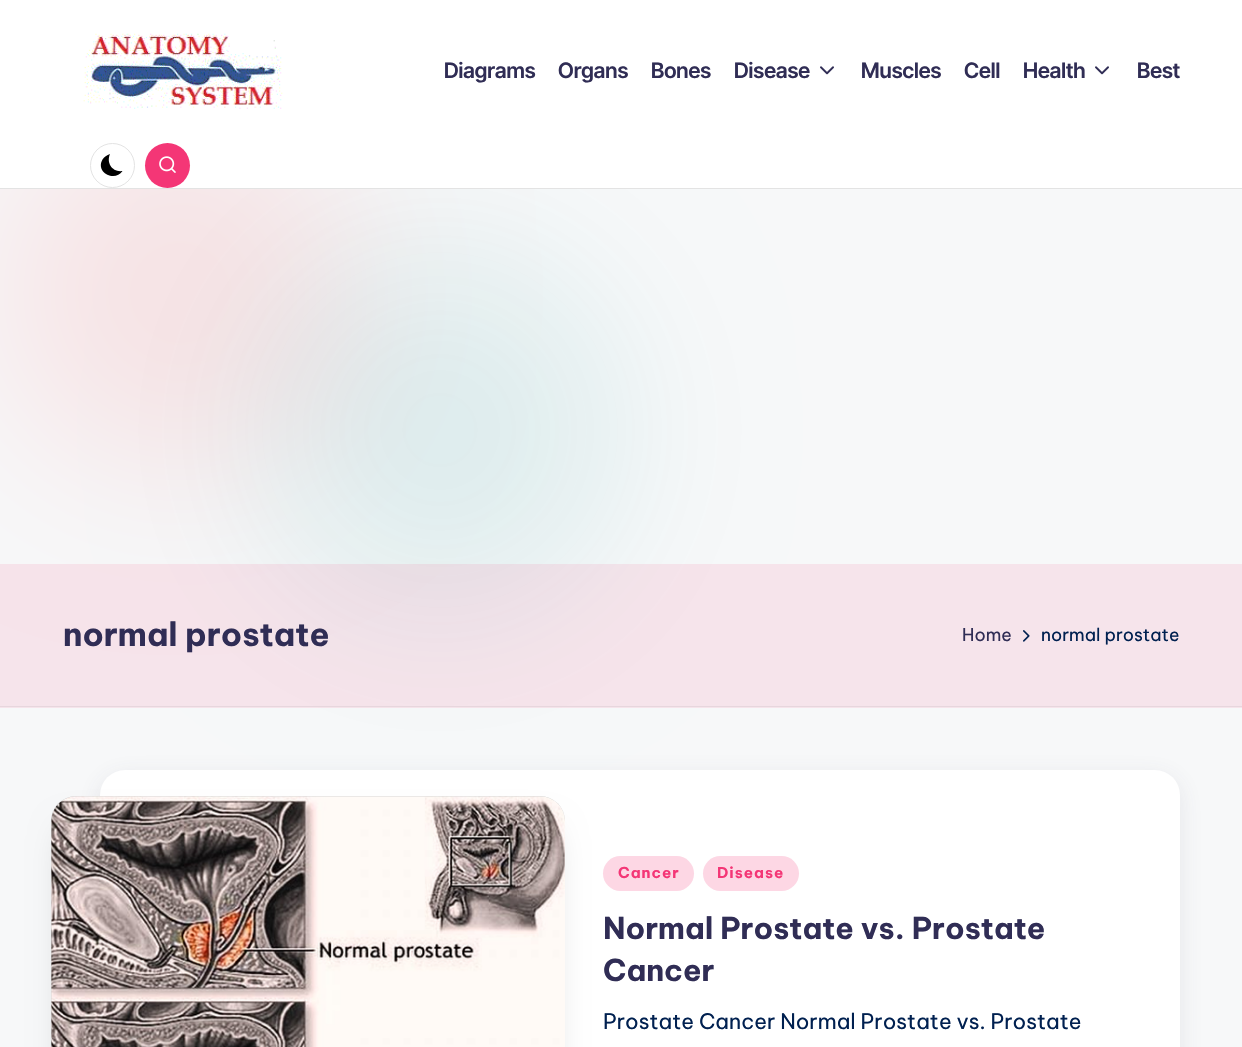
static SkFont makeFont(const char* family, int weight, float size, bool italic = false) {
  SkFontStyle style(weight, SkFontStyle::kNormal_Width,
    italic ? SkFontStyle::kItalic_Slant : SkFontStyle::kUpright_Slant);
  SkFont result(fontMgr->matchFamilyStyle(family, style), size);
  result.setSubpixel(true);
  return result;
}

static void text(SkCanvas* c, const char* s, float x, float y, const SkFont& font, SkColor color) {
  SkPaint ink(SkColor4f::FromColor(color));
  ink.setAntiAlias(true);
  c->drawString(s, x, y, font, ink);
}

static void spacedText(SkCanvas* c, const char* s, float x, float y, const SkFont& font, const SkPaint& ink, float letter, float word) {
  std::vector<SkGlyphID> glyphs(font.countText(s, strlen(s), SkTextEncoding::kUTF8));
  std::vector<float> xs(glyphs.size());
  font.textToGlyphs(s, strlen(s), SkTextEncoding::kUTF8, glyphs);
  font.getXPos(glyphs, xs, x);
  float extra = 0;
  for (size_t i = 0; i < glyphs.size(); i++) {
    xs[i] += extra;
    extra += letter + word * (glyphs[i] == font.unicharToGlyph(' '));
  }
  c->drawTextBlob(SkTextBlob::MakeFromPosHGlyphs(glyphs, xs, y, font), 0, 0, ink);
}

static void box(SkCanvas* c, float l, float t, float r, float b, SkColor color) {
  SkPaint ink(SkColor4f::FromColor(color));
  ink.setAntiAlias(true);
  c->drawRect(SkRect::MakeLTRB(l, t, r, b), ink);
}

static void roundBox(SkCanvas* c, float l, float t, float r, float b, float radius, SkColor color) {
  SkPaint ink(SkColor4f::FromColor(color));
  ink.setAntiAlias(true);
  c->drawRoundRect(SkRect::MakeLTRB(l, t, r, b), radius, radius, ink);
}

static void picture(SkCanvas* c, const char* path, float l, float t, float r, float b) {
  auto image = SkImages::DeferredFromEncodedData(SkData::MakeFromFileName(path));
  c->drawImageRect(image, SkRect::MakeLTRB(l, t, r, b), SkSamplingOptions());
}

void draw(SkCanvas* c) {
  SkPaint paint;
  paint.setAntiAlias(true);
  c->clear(0xfff7f8f9);
  paint.setColor(0xfff7e3e5);
  paint.setMaskFilter(SkMaskFilter::MakeBlur(kNormal_SkBlurStyle, 80));
  c->drawRoundRect(SkRect::MakeLTRB(0, 113, 360, 473), 180, 180, paint);
  paint.setMaskFilter(nullptr);
  paint.setColor(0x1a04868b);
  paint.setMaskFilter(SkMaskFilter::MakeBlur(kNormal_SkBlurStyle, 80));
  c->drawRoundRect(SkRect::MakeLTRB(260, 250, 620, 610), 180, 180, paint);
  paint.setMaskFilter(nullptr);
  box(c, 0, 0, 1242, 188, 0xffffffff);
  box(c, 0, 188, 1242, 189, 0xffe3e3e3);
  picture(c, "img_01.png", 83, 33, 283, 109);
  SkFont face1 = makeFont("Inter Tight", 600, 21.25f);
  text(c, "Diagrams", 444, 78, face1, 0xff302d55);
  text(c, "Organs", 558, 78, face1, 0xff302d55);
  text(c, "Bones", 651, 78, face1, 0xff302d55);
  text(c, "Disease", 734, 78, face1, 0xff302d55);
  picture(c, "img_02.png", 820, 66, 834, 75);
  text(c, "Muscles", 861, 78, face1, 0xff302d55);
  text(c, "Cell", 964, 78, face1, 0xff302d55);
  text(c, "Health", 1023, 78, face1, 0xff302d55);
  picture(c, "img_02.png", 1095, 66, 1109, 75);
  text(c, "Best", 1137, 78, face1, 0xff302d55);
  paint.setStyle(SkPaint::kStroke_Style);
  paint.setStrokeWidth(1);
  paint.setColor(0xffe3e3e3);
  c->drawCircle(112.5f, 165.5f, 22, paint);
  paint.setStyle(SkPaint::kFill_Style);
  paint.setColor(0xff000000);
  c->drawPath(SkPathBuilder().moveTo(122.5f, 171).cubicTo(112.5f, 172.5f, 106, 163, 110, 154).cubicTo(107, 155, 104, 157, 102.5f, 159.5f).cubicTo(95, 172.5f, 115, 182.5f, 122.5f, 171).close().detach(), paint);
  paint.setColor(0xfff43676);
  c->drawCircle(167.5f, 165.5f, 22.5f, paint);
  picture(c, "img_03.png", 159, 156, 176, 173);
  box(c, 0, 564, 1242, 708, 0x1af43676);
  box(c, 0, 706, 1242, 707, 0xffe7d6dd);
  SkFont face2 = makeFont("Be Vietnam Pro", 700, 32.5f);
  text(c, "normal prostate", 63, 646, face2, 0xff302d55);
  SkFont face3 = makeFont("Be Vietnam Pro", 400, 17.5f);
  text(c, "Home", 962, 641, face3, 0xff302d55);
  picture(c, "img_04.png", 1023, 630, 1030, 642);
  text(c, "normal prostate", 1041, 641, face3, 0xff002050);
  paint.setColor(0x1a454360);
  paint.setMaskFilter(SkMaskFilter::MakeBlur(kNormal_SkBlurStyle, 12.5f));
  c->drawRoundRect(SkRect::MakeLTRB(100, 776, 1180, 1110), 25, 25, paint);
  paint.setMaskFilter(nullptr);
  roundBox(c, 100, 770, 1180, 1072, 25, 0xffffffff);
  roundBox(c, 603, 856, 694, 891, 17.5f, 0xfffdd7e4);
  paint.setColor(0x2e000000);
  paint.setMaskFilter(SkMaskFilter::MakeBlur(kNormal_SkBlurStyle, 17.5f));
  c->drawRoundRect(SkRect::MakeLTRB(66, 831, 550, 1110), 10, 10, paint);
  paint.setMaskFilter(nullptr);
  roundBox(c, 51, 796, 565, 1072, 25, 0xffd1d1d1);
  picture(c, "img_05.png", 51, 796, 565, 1047);
  SkFont face4 = makeFont("Be Vietnam Pro", 700, 15);
  paint.setColor(0xfff43676);
  spacedText(c, "Cancer", 618, 878, face4, paint, 1, 0);
  roundBox(c, 703, 856, 799, 891, 17.5f, 0xfffdd7e4);
  spacedText(c, "Disease", 717, 878, face4, paint, 1, 0);
  SkFont face5 = makeFont("Be Vietnam Pro", 700, 30);
  text(c, "Normal Prostate vs. Prostate", 603, 939, face5, 0xff302d55);
  text(c, "Cancer", 603, 981, face5, 0xff302d55);
  SkFont face6 = makeFont("Be Vietnam Pro", 400, 21.25f);
  text(c, "Prostate Cancer Normal Prostate vs. Prostate", 603, 1029, face6, 0xff002050);
}
